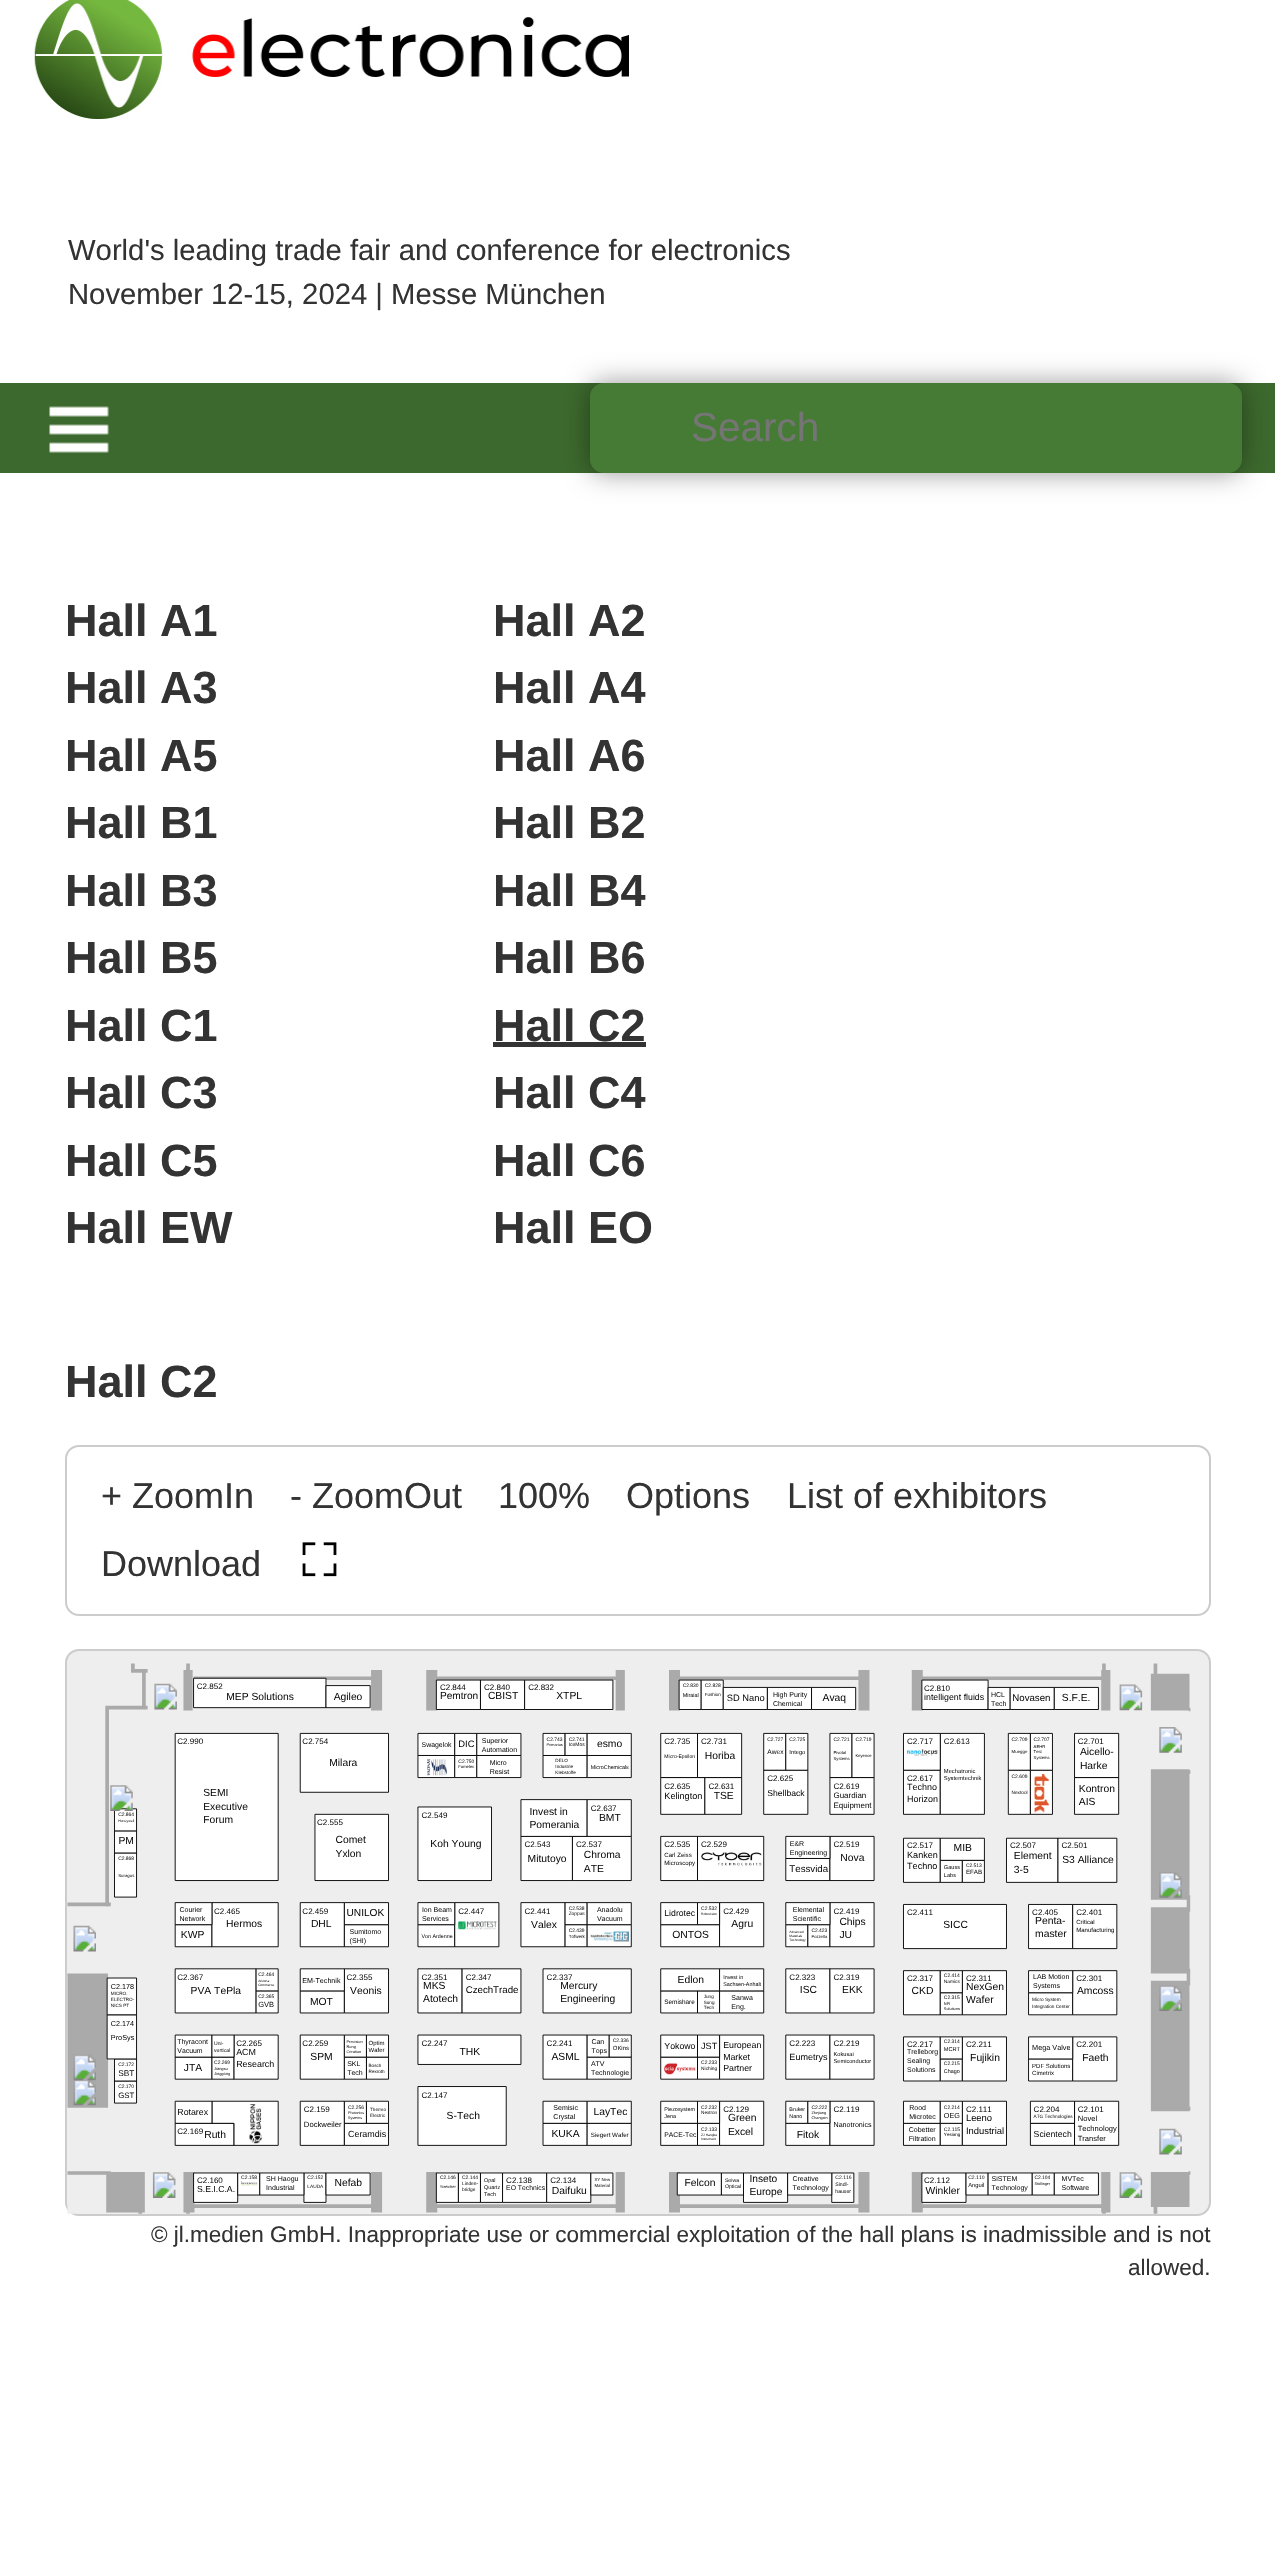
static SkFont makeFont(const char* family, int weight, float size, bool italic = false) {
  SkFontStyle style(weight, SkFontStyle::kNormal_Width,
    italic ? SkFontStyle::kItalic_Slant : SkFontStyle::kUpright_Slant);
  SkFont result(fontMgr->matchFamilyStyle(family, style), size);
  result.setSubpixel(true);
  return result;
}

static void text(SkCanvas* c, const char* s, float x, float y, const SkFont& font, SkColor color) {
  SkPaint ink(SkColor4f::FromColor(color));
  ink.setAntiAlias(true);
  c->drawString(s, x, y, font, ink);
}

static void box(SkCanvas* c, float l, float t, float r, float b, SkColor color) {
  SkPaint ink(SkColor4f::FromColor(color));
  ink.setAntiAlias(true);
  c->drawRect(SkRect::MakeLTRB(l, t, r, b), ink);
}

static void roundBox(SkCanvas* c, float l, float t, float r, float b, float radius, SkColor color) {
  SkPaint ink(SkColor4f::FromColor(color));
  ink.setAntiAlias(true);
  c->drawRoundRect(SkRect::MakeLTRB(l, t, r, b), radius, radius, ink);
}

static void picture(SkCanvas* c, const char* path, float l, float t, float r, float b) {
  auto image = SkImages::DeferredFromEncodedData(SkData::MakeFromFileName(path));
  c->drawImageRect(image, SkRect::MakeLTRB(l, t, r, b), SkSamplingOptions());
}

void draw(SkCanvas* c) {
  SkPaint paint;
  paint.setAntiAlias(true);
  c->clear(0xffffffff);
  picture(c, "img_01.png", 34, 0, 629, 119);
  SkFont face1 = makeFont("Liberation Sans", 400, 29.25f);
  text(c, "World's leading trade fair and conference for electronics", 68, 260, face1, 0xff333333);
  text(c, "November 12-15, 2024 | Messe München", 68, 304, face1, 0xff333333);
  box(c, 0, 383, 1275, 473, 0xff3c692d);
  paint.setColor(0x66000000);
  paint.setMaskFilter(SkMaskFilter::MakeBlur(kNormal_SkBlurStyle, 13.5f));
  c->drawRoundRect(SkRect::MakeLTRB(590, 383, 1242, 473), 14, 14, paint);
  paint.setMaskFilter(nullptr);
  roundBox(c, 590, 383, 1242, 473, 14, 0xff467b35);
  SkFont face2 = makeFont("Liberation Sans", 400, 40.5f);
  text(c, "Search", 691, 441, face2, 0xff757575);
  picture(c, "img_02.png", 49, 406, 109, 453);
  SkFont face3 = makeFont("Liberation Sans", 700, 45);
  text(c, "Hall A1", 65, 636, face3, 0xff333333);
  text(c, "Hall A2", 493, 636, face3, 0xff333333);
  text(c, "Hall A3", 65, 703, face3, 0xff333333);
  text(c, "Hall A4", 493, 703, face3, 0xff333333);
  text(c, "Hall A5", 65, 771, face3, 0xff333333);
  text(c, "Hall A6", 493, 771, face3, 0xff333333);
  text(c, "Hall B1", 65, 838, face3, 0xff333333);
  text(c, "Hall B2", 493, 838, face3, 0xff333333);
  text(c, "Hall B3", 65, 906, face3, 0xff333333);
  text(c, "Hall B4", 493, 906, face3, 0xff333333);
  text(c, "Hall B5", 65, 973, face3, 0xff333333);
  text(c, "Hall B6", 493, 973, face3, 0xff333333);
  text(c, "Hall C1", 65, 1041, face3, 0xff333333);
  text(c, "Hall C2", 493, 1041, face3, 0xff333333);
  box(c, 493, 1042, 646, 1047, 0xff333333);
  text(c, "Hall C3", 65, 1108, face3, 0xff333333);
  text(c, "Hall C4", 493, 1108, face3, 0xff333333);
  text(c, "Hall C5", 65, 1176, face3, 0xff333333);
  text(c, "Hall C6", 493, 1176, face3, 0xff333333);
  text(c, "Hall EW", 65, 1243, face3, 0xff333333);
  text(c, "Hall EO", 493, 1243, face3, 0xff333333);
  text(c, "Hall C2", 65, 1397, face3, 0xff333333);
  paint.setStyle(SkPaint::kStroke_Style);
  paint.setStrokeWidth(2);
  paint.setColor(0xffcccccc);
  c->drawRoundRect(SkRect::MakeLTRB(66, 1446, 1210, 1615), 13, 13, paint);
  SkFont face4 = makeFont("Liberation Sans", 400, 36);
  text(c, "+ ZoomIn", 101, 1508, face4, 0xff333333);
  text(c, "- ZoomOut", 290, 1508, face4, 0xff333333);
  text(c, "100%", 498, 1508, face4, 0xff333333);
  text(c, "Options", 626, 1508, face4, 0xff333333);
  text(c, "List of exhibitors", 787, 1508, face4, 0xff333333);
  text(c, "Download", 101, 1576, face4, 0xff333333);
  picture(c, "img_03.png", 302, 1542, 337, 1577);
  paint.setStyle(SkPaint::kFill_Style);
  paint.setColor(0xffeeeeee);
  c->drawRoundRect(SkRect::MakeLTRB(66, 1650, 1210, 2215), 13, 13, paint);
  paint.setStyle(SkPaint::kStroke_Style);
  paint.setColor(0xffcccccc);
  c->drawRoundRect(SkRect::MakeLTRB(66, 1650, 1210, 2215), 13, 13, paint);
  picture(c, "img_04.png", 67, 1663, 1191, 2214);
  SkFont face5 = makeFont("Liberation Sans", 400, 22.5f);
  text(c, "© jl.medien GmbH. Inappropriate use or commercial exploitation of the hall plans is inadmissible and is not", 151, 2242, face5, 0xff333333);
  text(c, "allowed.", 1128, 2275, face5, 0xff333333);
}
